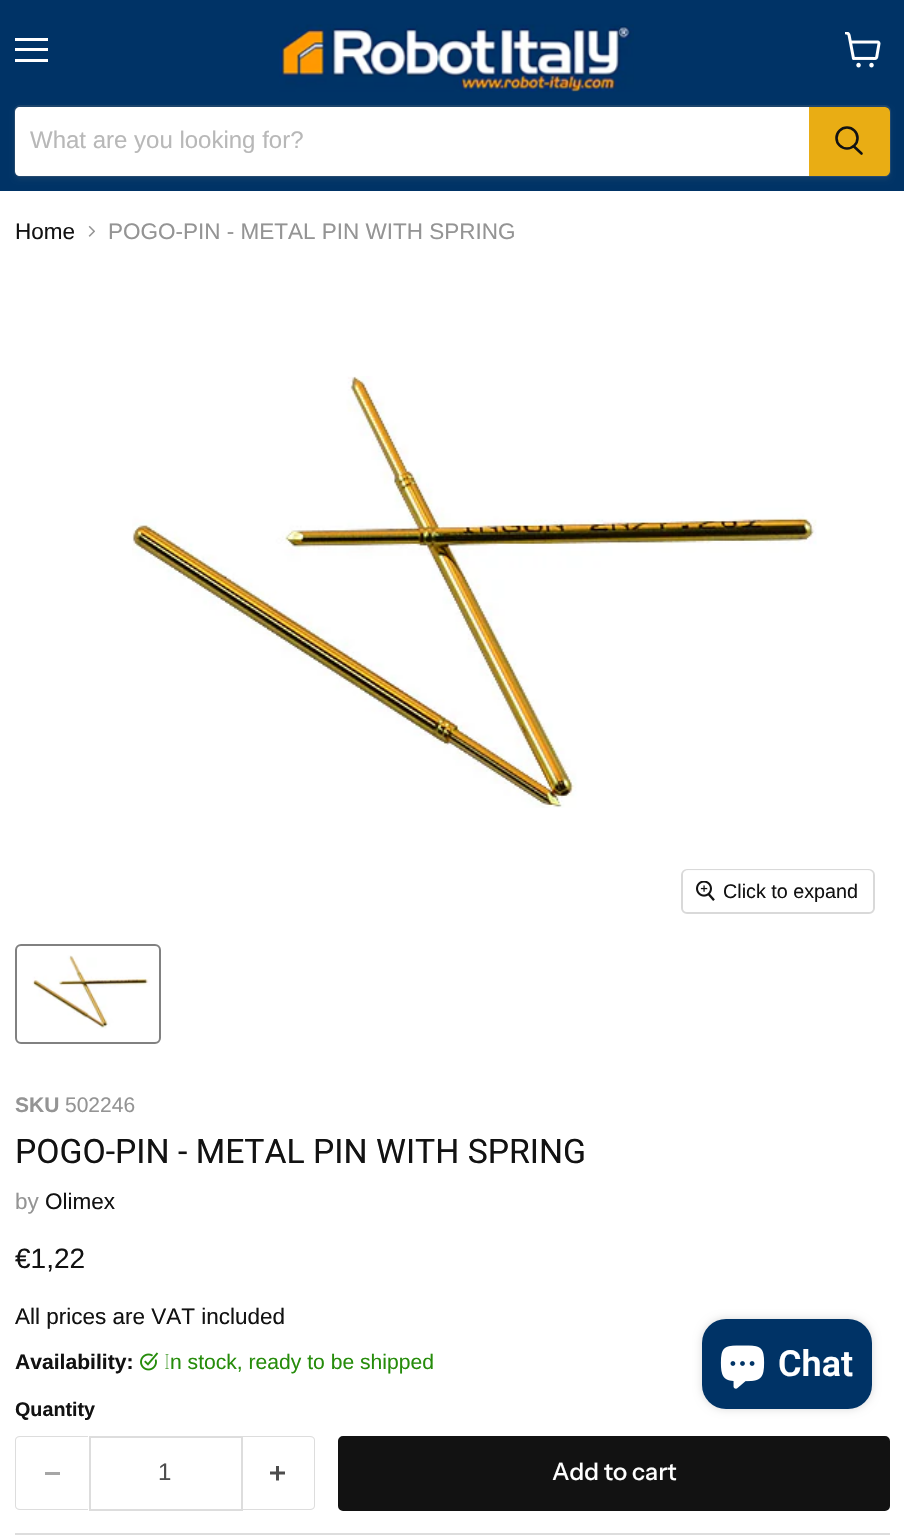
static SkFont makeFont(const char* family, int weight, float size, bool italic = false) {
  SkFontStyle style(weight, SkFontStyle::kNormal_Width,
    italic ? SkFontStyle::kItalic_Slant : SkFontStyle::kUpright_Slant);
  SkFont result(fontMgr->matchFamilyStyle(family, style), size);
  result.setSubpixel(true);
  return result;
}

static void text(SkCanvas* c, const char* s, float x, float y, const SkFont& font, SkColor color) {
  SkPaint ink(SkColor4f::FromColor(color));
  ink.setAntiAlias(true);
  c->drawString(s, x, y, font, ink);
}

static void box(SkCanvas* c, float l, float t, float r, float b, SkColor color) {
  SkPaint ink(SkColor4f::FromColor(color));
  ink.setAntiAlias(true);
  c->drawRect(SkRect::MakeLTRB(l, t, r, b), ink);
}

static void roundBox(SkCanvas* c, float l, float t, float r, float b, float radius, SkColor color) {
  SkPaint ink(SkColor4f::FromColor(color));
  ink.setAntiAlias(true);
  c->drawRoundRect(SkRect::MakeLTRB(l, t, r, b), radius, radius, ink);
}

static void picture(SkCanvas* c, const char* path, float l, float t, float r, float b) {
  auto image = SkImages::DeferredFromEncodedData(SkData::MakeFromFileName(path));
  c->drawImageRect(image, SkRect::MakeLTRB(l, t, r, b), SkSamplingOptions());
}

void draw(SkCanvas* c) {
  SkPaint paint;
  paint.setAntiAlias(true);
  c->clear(0xffffffff);
  box(c, 0, 0, 904, 191, 0xff003366);
  box(c, 15, 38, 48, 41, 0xffffffff);
  box(c, 15, 48, 48, 51, 0xffffffff);
  box(c, 15, 59, 48, 62, 0xffffffff);
  picture(c, "img_01.png", 845, 32, 881, 68);
  picture(c, "img_02.png", 279, 24, 634, 92);
  paint.setColor(0x1c808080);
  paint.setMaskFilter(SkMaskFilter::MakeBlur(kNormal_SkBlurStyle, 2));
  c->drawRoundRect(SkRect::MakeLTRB(14, 108, 891, 180), 6, 6, paint);
  paint.setMaskFilter(nullptr);
  paint.setStyle(SkPaint::kStroke_Style);
  paint.setStrokeWidth(2);
  paint.setColor(0x33808080);
  c->drawRoundRect(SkRect::MakeLTRB(15, 106, 890, 176), 5, 5, paint);
  paint.setStyle(SkPaint::kFill_Style);
  paint.setColor(0xffffffff);
  c->drawPath(SkPathBuilder().moveTo(20, 107).lineTo(809, 107).lineTo(809, 176).lineTo(20, 176).cubicTo(17, 176, 15, 174, 15, 171).lineTo(15, 112).cubicTo(15, 109, 17, 107, 20, 107).close().detach(), paint);
  SkFont face1 = makeFont("Liberation Sans", 400, 24);
  text(c, "What are you looking for?", 30, 148, face1, 0xffb8b8b8);
  paint.setColor(0xffe9ad14);
  c->drawPath(SkPathBuilder().moveTo(810, 108).lineTo(885, 108).cubicTo(887, 108, 889, 110, 889, 112).lineTo(889, 171).cubicTo(889, 173, 887, 175, 885, 175).lineTo(810, 175).close().detach(), paint);
  paint.setStyle(SkPaint::kStroke_Style);
  c->drawPath(SkPathBuilder().moveTo(810, 108).lineTo(885, 108).cubicTo(887, 108, 889, 110, 889, 112).lineTo(889, 171).cubicTo(889, 173, 887, 175, 885, 175).lineTo(810, 175).close().detach(), paint);
  paint.setStrokeWidth(2.6f);
  paint.setStrokeCap(SkPaint::kRound_Cap);
  paint.setColor(0xff121212);
  c->drawPath(SkPathBuilder().moveTo(861.5f, 153.5f).lineTo(854, 146.5f).detach(), paint);
  paint.setStrokeCap(SkPaint::kButt_Cap);
  c->drawCircle(847, 138, 10.5f, paint);
  SkFont face2 = makeFont("Liberation Sans", 400, 22.5f);
  text(c, "Home", 15, 239, face2, 0xff121212);
  picture(c, "img_03.png", 88, 225, 95, 237);
  text(c, "POGO-PIN - METAL PIN WITH SPRING", 108, 239, face2, 0xff949494);
  picture(c, "img_04.png", 132, 376, 817, 808);
  paint.setStrokeWidth(2);
  paint.setColor(0xffd9d9d9);
  c->drawRoundRect(SkRect::MakeLTRB(682, 870, 874, 913), 5, 5, paint);
  roundBox(c, 683, 870, 873, 912, 5, 0xe6ffffff);
  picture(c, "img_05.png", 696, 881, 715, 901);
  SkFont face3 = makeFont("Liberation Sans", 400, 19.75f);
  text(c, "Click to expand", 723, 898, face3, 0xff121212);
  paint.setColor(0xff818181);
  c->drawRoundRect(SkRect::MakeLTRB(16, 945, 160, 1043), 5, 5, paint);
  picture(c, "img_06.png", 32, 955, 150, 1029);
  SkFont face4 = makeFont("Liberation Sans", 700, 21);
  text(c, "SKU", 15, 1112, face4, 0xff949494);
  SkFont face5 = makeFont("Liberation Sans", 400, 21);
  text(c, "502246", 65, 1112, face5, 0xff949494);
  SkFont face6 = makeFont("Roboto", 400, 33.75f);
  text(c, "POGO-PIN - METAL PIN WITH SPRING", 15, 1163, face6, 0xff121212);
  text(c, "by", 15, 1209, face2, 0xff949494);
  text(c, "Olimex", 45, 1209, face2, 0xff121212);
  SkFont face7 = makeFont("Liberation Sans", 400, 28);
  text(c, "€1,22", 15, 1268, face7, 0xff121212);
  text(c, "All prices are VAT included", 15, 1324, face2, 0xff121212);
  SkFont face8 = makeFont("Liberation Sans", 700, 21.1f);
  text(c, "Availability:", 15, 1369, face8, 0xff121212);
  picture(c, "img_07.png", 140, 1352, 159, 1371);
  SkFont face9 = makeFont("Noto Sans", 100, 21.1f);
  text(c, "I", 164, 1369, face9, 0xff268c0b);
  SkFont face10 = makeFont("Liberation Sans", 400, 21.1f);
  text(c, "n stock, ready to be shipped", 170, 1369, face10, 0xff268c0b);
  SkFont face11 = makeFont("Liberation Sans", 700, 19.75f);
  text(c, "Quantity", 15, 1416, face11, 0xff121212);
  paint.setStyle(SkPaint::kFill_Style);
  paint.setColor(0xffdddddd);
  c->drawPath(SkPathBuilder(SkPathFillType::kEvenOdd).moveTo(20, 1436).lineTo(88, 1436).lineTo(88, 1510).lineTo(20, 1510).cubicTo(17, 1510, 15, 1508, 15, 1506).lineTo(15, 1440).cubicTo(15, 1438, 17, 1436, 20, 1436).close().moveTo(20, 1437).lineTo(88, 1437).lineTo(88, 1509).lineTo(20, 1509).cubicTo(18, 1509, 16, 1508, 16, 1506).lineTo(16, 1440).cubicTo(16, 1438, 18, 1437, 20, 1437).close().detach(), paint);
  box(c, 45, 1472, 60, 1475, 0xffa6a6a6);
  paint.setStyle(SkPaint::kStroke_Style);
  c->drawRect(SkRect::MakeLTRB(90, 1437, 242, 1510), paint);
  text(c, "1", 158, 1480, face1, 0xff4d4d4d);
  paint.setStyle(SkPaint::kFill_Style);
  c->drawPath(SkPathBuilder(SkPathFillType::kEvenOdd).moveTo(243, 1436).lineTo(310, 1436).cubicTo(313, 1436, 315, 1438, 315, 1440).lineTo(315, 1506).cubicTo(315, 1508, 313, 1510, 310, 1510).lineTo(243, 1510).close().moveTo(243, 1437).lineTo(310, 1437).cubicTo(312, 1437, 314, 1438, 314, 1440).lineTo(314, 1506).cubicTo(314, 1508, 312, 1509, 310, 1509).lineTo(243, 1509).close().detach(), paint);
  picture(c, "img_08.png", 270, 1466, 285, 1481);
  paint.setColor(0xff121212);
  c->drawRoundRect(SkRect::MakeLTRB(339, 1437, 889, 1510), 4, 4, paint);
  paint.setStyle(SkPaint::kStroke_Style);
  c->drawRoundRect(SkRect::MakeLTRB(339, 1437, 889, 1510), 4, 4, paint);
  SkFont face12 = makeFont("Instrument Sans", 500, 24);
  text(c, "Add to cart", 552, 1480, face12, 0xffffffff);
  box(c, 15, 1533, 890, 1535, 0xffdddddd);
  paint.setStyle(SkPaint::kFill_Style);
  paint.setColor(0x26000000);
  paint.setMaskFilter(SkMaskFilter::MakeBlur(kNormal_SkBlurStyle, 4));
  c->drawRoundRect(SkRect::MakeLTRB(702, 1319, 872, 1409), 24, 24, paint);
  paint.setMaskFilter(nullptr);
  roundBox(c, 702, 1319, 872, 1409, 24, 0xff003366);
  picture(c, "img_09.png", 720, 1345, 765, 1389);
  SkFont face13 = makeFont("Roboto", 600, 36);
  text(c, "Chat", 778, 1376, face13, 0xffffffff);
}
